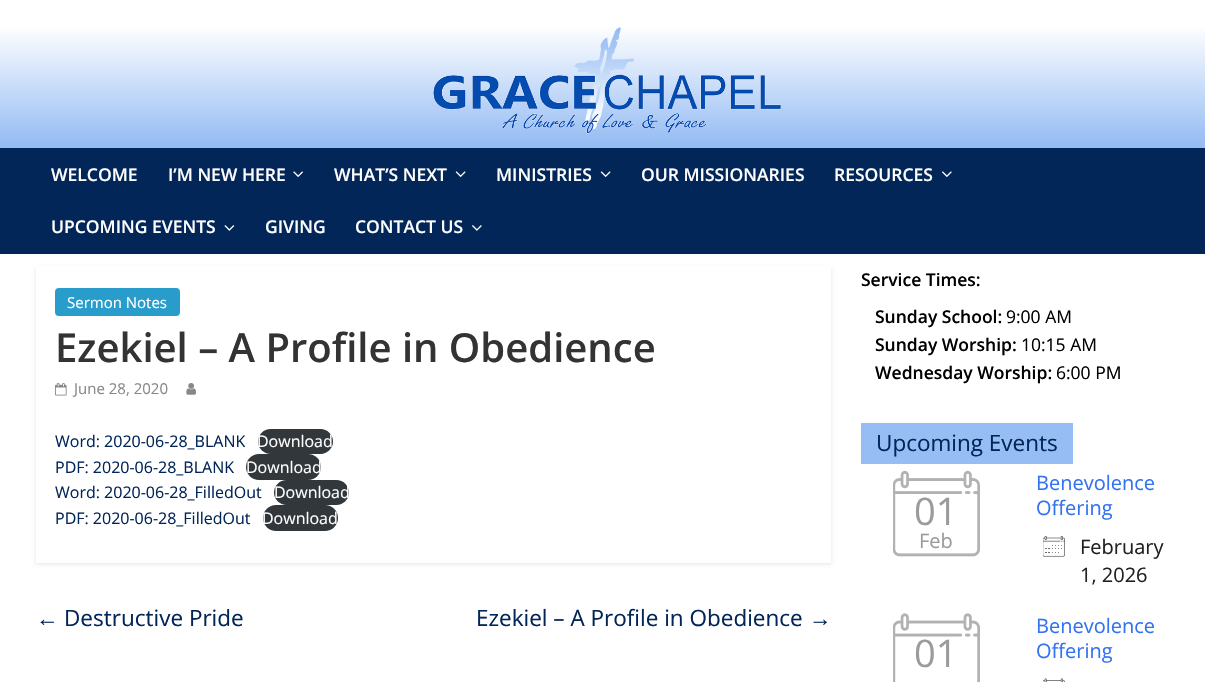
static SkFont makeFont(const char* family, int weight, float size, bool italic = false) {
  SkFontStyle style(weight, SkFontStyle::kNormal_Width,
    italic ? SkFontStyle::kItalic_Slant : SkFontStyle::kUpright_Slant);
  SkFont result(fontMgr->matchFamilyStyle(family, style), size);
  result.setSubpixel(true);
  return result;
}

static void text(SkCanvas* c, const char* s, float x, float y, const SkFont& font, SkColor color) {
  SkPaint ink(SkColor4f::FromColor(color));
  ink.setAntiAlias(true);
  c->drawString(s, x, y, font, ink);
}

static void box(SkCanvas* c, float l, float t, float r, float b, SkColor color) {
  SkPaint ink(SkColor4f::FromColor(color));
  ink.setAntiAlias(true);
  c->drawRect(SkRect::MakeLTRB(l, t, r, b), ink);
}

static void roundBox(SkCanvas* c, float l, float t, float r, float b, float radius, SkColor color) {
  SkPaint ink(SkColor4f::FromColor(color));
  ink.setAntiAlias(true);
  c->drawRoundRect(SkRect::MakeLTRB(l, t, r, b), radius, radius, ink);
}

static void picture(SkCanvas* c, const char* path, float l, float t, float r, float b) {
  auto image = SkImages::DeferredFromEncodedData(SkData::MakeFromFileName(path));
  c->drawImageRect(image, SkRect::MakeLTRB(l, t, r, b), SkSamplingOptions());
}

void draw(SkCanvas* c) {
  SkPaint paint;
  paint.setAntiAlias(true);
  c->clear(0xffffffff);
  {
    const SkColor colors[] = {0xff96bdf4, 0xffffffff};
    const float stops[] = {0, 1};
    const SkPoint ends[] = {{603, 143}, {603, 25}};
    paint.setShader(SkGradientShader::MakeLinear(ends, colors, stops, 2, SkTileMode::kClamp));
    paint.setAlpha(255);
  }
  c->drawRect(SkRect::MakeLTRB(0, 28, 1205, 143), paint);
  picture(c, "img_01.png", 433, 27, 781, 134);
  box(c, 0, 148, 1205, 254, 0xff022658);
  box(c, 0, 143, 1205, 148, 0xff96bdf4);
  SkFont face1 = makeFont("Open Sans", 600, 17.5f);
  text(c, "WELCOME", 51, 181, face1, 0xffffffff);
  text(c, "I’M NEW HERE", 168, 181, face1, 0xffffffff);
  picture(c, "img_02.png", 293, 171, 303, 177);
  text(c, "WHAT’S NEXT", 334, 181, face1, 0xffffffff);
  picture(c, "img_03.png", 455, 171, 466, 177);
  text(c, "MINISTRIES", 496, 181, face1, 0xffffffff);
  picture(c, "img_03.png", 600, 171, 611, 177);
  text(c, "OUR MISSIONARIES", 641, 181, face1, 0xffffffff);
  text(c, "RESOURCES", 834, 181, face1, 0xffffffff);
  picture(c, "img_04.png", 942, 171, 952, 177);
  text(c, "UPCOMING EVENTS", 51, 233, face1, 0xffffffff);
  picture(c, "img_05.png", 224, 225, 235, 231);
  text(c, "GIVING", 265, 233, face1, 0xffffffff);
  text(c, "CONTACT US", 355, 233, face1, 0xffffffff);
  picture(c, "img_06.png", 472, 225, 482, 231);
  c->save();
  c->clipPath(SkPathBuilder(SkPathFillType::kEvenOdd).moveTo(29, 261).lineTo(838, 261).lineTo(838, 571).lineTo(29, 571).close().moveTo(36, 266).lineTo(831, 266).lineTo(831, 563).lineTo(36, 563).close().detach(), true);
  paint.setShader(nullptr);
  paint.setColor(0x1a000000);
  paint.setMaskFilter(SkMaskFilter::MakeBlur(kNormal_SkBlurStyle, 2));
  c->drawRect(SkRect::MakeLTRB(36, 268, 831, 564), paint);
  paint.setMaskFilter(nullptr);
  c->restore();
  roundBox(c, 55, 288, 180, 316, 4, 0xff289dcc);
  SkFont face2 = makeFont("Open Sans", 400, 15);
  text(c, "Sermon Notes", 67, 308, face2, 0xffffffff);
  SkFont face3 = makeFont("Open Sans", 600, 40);
  text(c, "Ezekiel – A Profile in Obedience", 55, 362, face3, 0xff333333);
  picture(c, "img_07.png", 55, 383, 67, 396);
  text(c, "June 28, 2020", 74, 394, face2, 0xff888888);
  picture(c, "img_08.png", 186, 383, 197, 395);
  SkFont face4 = makeFont("Open Sans", 400, 16);
  text(c, "Word: 2020-06-28_BLANK", 55, 447, face4, 0xff022658);
  roundBox(c, 258, 429, 333, 454, 12.5f, 0xff32373c);
  text(c, "Download", 257, 447, face4, 0xffffffff);
  text(c, "PDF: 2020-06-28_BLANK", 55, 473, face4, 0xff022658);
  roundBox(c, 246, 454, 321, 480, 13, 0xff32373c);
  text(c, "Download", 246, 473, face4, 0xffffffff);
  text(c, "Word: 2020-06-28_FilledOut", 55, 498, face4, 0xff022658);
  roundBox(c, 274, 480, 349, 505, 12.5f, 0xff32373c);
  text(c, "Download", 274, 498, face4, 0xffffffff);
  text(c, "PDF: 2020-06-28_FilledOut", 55, 524, face4, 0xff022658);
  roundBox(c, 263, 505, 338, 531, 13, 0xff32373c);
  text(c, "Download", 262, 524, face4, 0xffffffff);
  SkFont face5 = makeFont("Liberation Serif", 400, 22.5f);
  text(c, "←", 36, 626, face5, 0xff022658);
  SkFont face6 = makeFont("Open Sans", 400, 22.5f);
  text(c, "Destructive Pride", 64, 626, face6, 0xff022658);
  text(c, "Ezekiel – A Profile in Obedience", 476, 626, face6, 0xff022658);
  text(c, "→", 809, 626, face5, 0xff022658);
  text(c, "Service Times:", 861, 286, face1, 0xff000000);
  text(c, "Sunday School:", 875, 323, face1, 0xff000000);
  SkFont face7 = makeFont("Open Sans", 400, 17.5f);
  text(c, "9:00 AM", 1006, 323, face7, 0xff000000);
  text(c, "Sunday Worship:", 875, 351, face1, 0xff000000);
  text(c, "10:15 AM", 1021, 351, face7, 0xff000000);
  text(c, "Wednesday Worship:", 875, 379, face1, 0xff000000);
  text(c, "6:00 PM", 1056, 379, face7, 0xff000000);
  box(c, 861, 423, 1073, 464, 0xff96bdf4);
  text(c, "Upcoming Events", 876, 451, face6, 0xff022658);
  picture(c, "img_09.png", 893, 470, 980, 557);
  SkFont face8 = makeFont("Open Sans", 400, 38);
  text(c, "01", 914, 525, face8, 0xff9b9b9b);
  SkFont face9 = makeFont("Open Sans", 400, 20);
  text(c, "Feb", 919, 548, face9, 0xff9b9b9b);
  text(c, "Benevolence", 1036, 490, face9, 0xff3372f0);
  text(c, "Offering", 1036, 515, face9, 0xff3372f0);
  picture(c, "img_10.png", 1043, 535, 1065, 557);
  text(c, "February", 1080, 554, face9, 0xff212121);
  text(c, "1, 2026", 1080, 582, face9, 0xff212121);
  picture(c, "img_11.png", 893, 613, 980, 682);
  text(c, "01", 914, 667, face8, 0xff9b9b9b);
  text(c, "Benevolence", 1036, 633, face9, 0xff3372f0);
  text(c, "Offering", 1036, 658, face9, 0xff3372f0);
  picture(c, "img_12.png", 1043, 678, 1065, 682);
}
